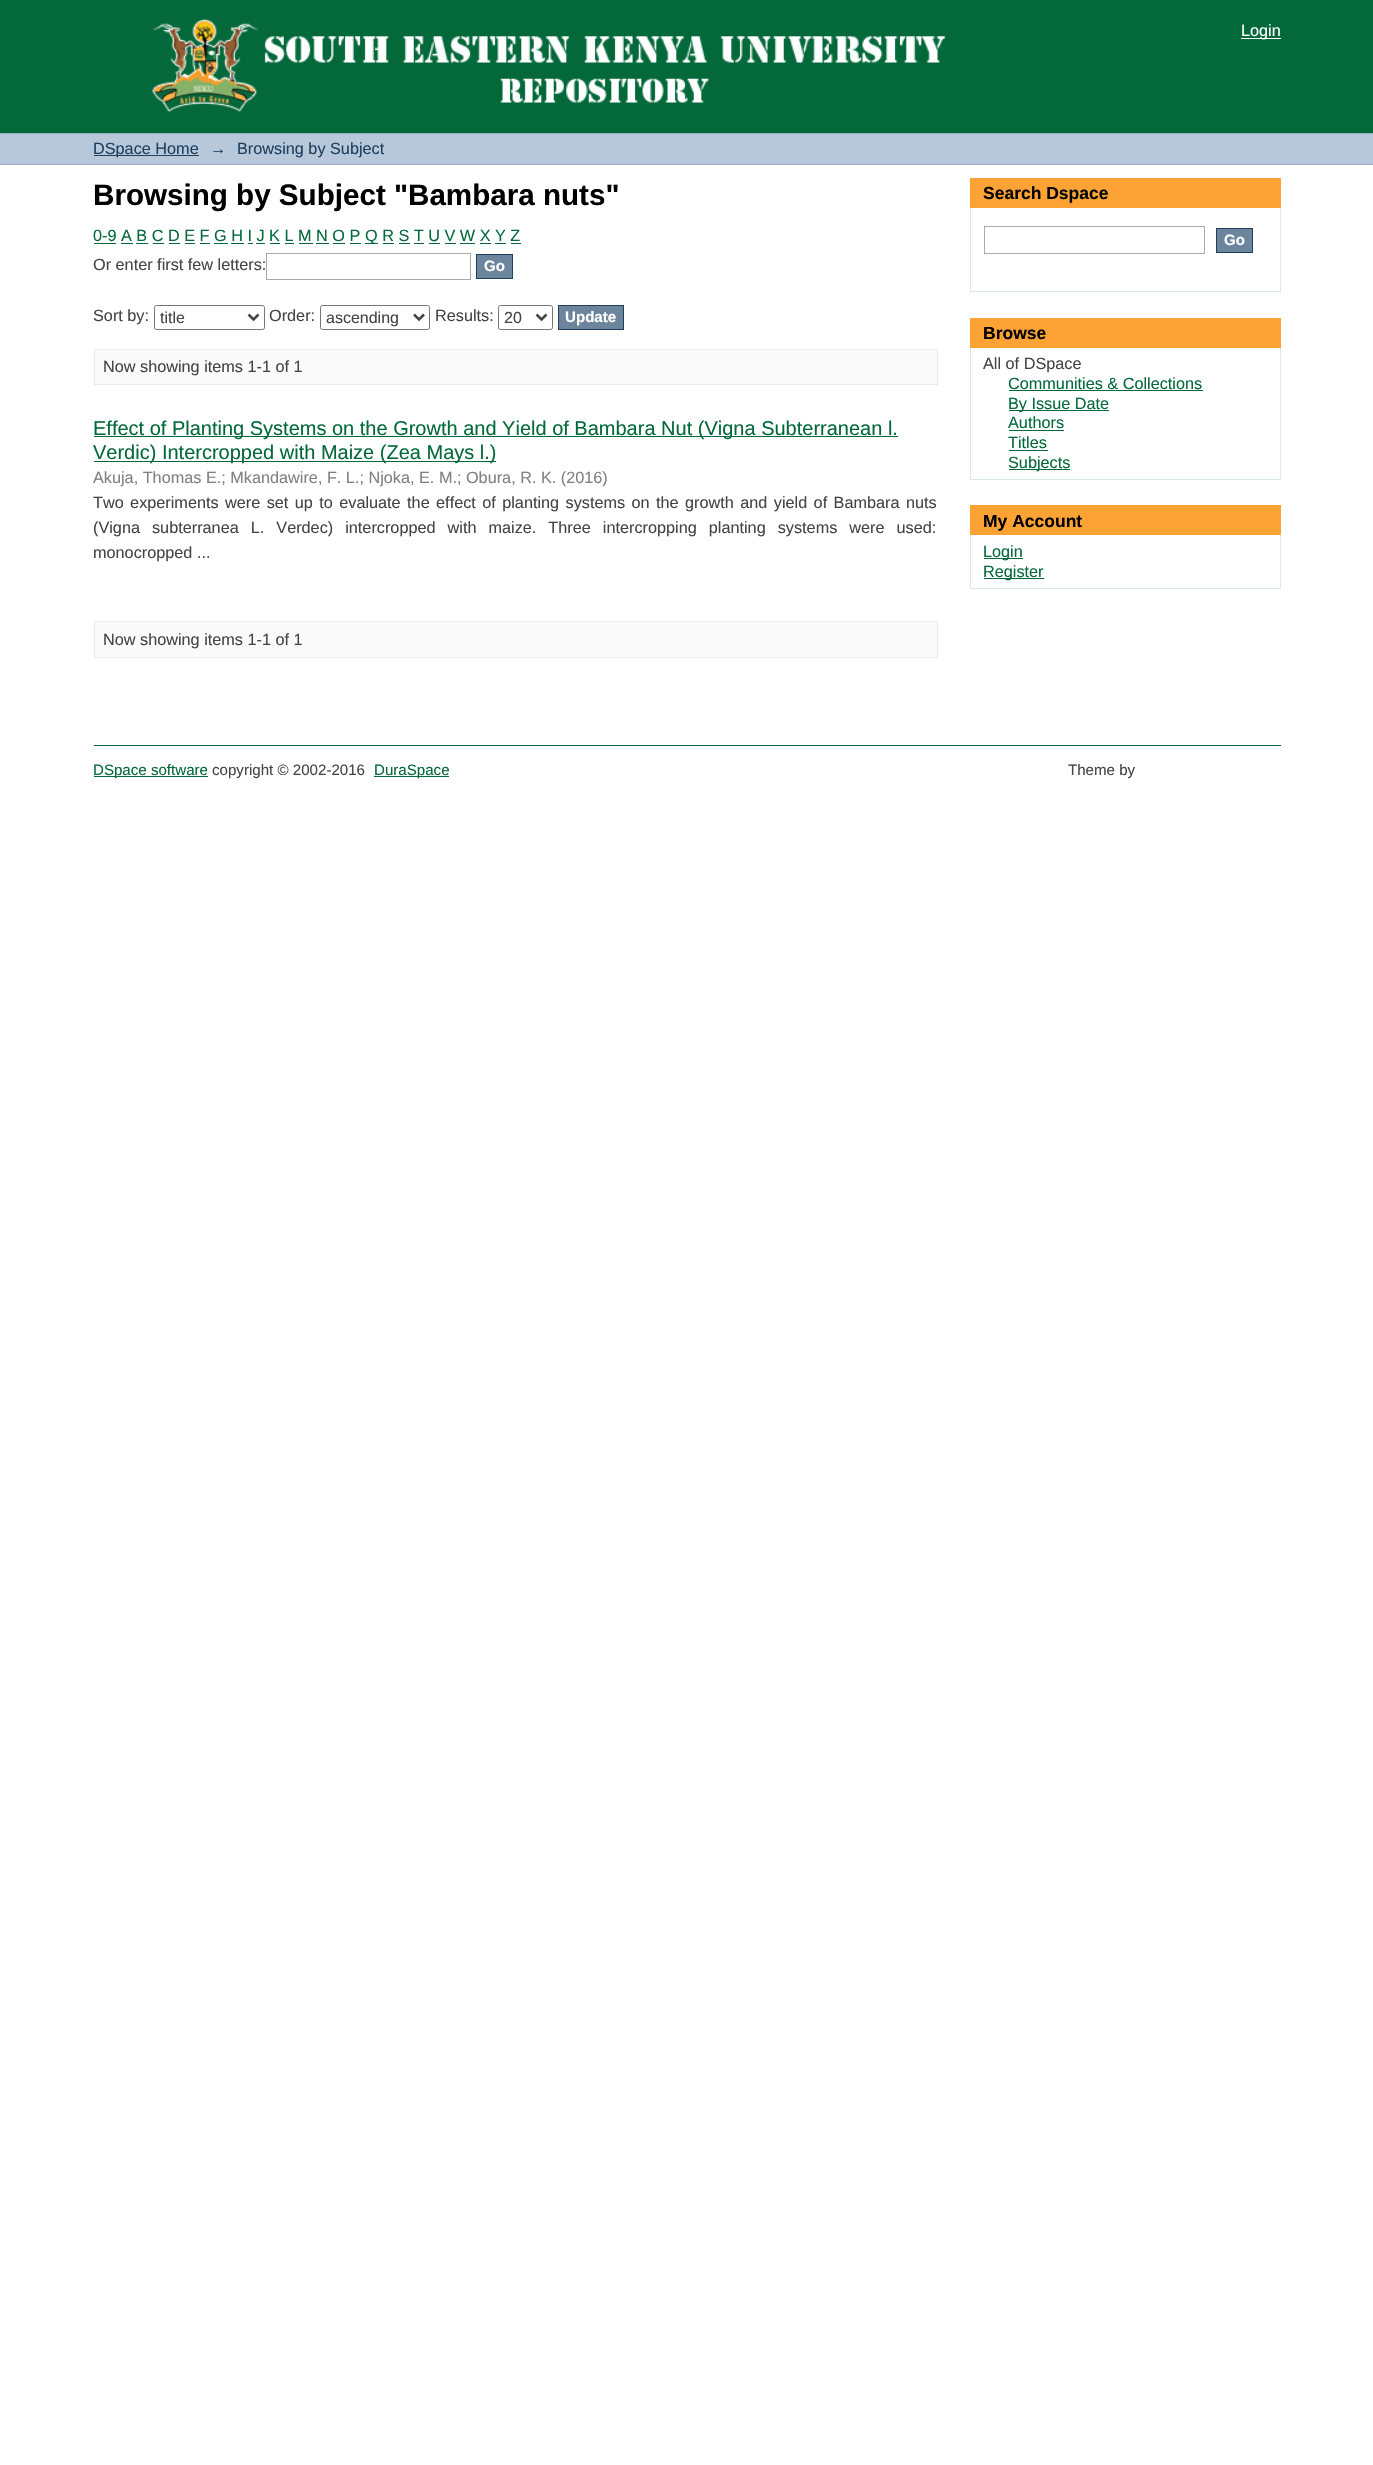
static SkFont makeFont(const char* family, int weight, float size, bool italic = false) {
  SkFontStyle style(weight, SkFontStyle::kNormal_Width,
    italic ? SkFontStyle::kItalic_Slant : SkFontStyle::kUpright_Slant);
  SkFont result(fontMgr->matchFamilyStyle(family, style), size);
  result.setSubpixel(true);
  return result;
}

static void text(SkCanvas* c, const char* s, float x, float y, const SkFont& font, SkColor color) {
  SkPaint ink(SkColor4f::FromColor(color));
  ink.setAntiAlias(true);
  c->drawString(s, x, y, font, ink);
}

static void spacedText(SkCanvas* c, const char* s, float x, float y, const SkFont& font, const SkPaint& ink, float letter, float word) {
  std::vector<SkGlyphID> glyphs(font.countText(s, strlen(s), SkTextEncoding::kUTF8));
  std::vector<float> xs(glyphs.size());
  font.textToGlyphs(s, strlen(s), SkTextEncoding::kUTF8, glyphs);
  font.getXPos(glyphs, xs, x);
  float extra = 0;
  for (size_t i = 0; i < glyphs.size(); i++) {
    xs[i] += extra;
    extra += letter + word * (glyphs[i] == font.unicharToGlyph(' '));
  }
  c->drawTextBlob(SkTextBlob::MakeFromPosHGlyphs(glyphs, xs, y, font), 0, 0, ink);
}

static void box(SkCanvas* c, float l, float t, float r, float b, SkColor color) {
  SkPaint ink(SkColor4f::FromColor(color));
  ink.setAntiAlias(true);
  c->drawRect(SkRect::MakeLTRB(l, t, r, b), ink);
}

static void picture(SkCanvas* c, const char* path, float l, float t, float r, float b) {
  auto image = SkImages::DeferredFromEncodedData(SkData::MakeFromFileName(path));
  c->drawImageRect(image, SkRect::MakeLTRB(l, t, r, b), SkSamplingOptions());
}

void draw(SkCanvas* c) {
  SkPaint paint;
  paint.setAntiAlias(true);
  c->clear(0xffffffff);
  box(c, 0, 0, 1373, 133, 0xff03693a);
  picture(c, "img_01.png", 152, 18, 946, 112);
  box(c, 1241, 38, 1281, 39, 0xffffffff);
  SkFont face1 = makeFont("Liberation Sans", 400, 16.25f);
  text(c, "Login", 1241, 36, face1, 0xffffffff);
  box(c, 0, 134, 1373, 164, 0xffb6c8d9);
  box(c, 0, 133, 1373, 134, 0xff9cacba);
  box(c, 0, 164, 1373, 165, 0xff9cacba);
  box(c, 94, 155, 199, 156, 0xff1f3f5e);
  text(c, "DSpace Home", 93, 154, face1, 0xff1f3f5e);
  text(c, "→", 210, 154, face1, 0xff1f3f5e);
  text(c, "Browsing by Subject", 237, 154, face1, 0xff1f3f5e);
  SkFont face2 = makeFont("Liberation Sans", 700, 29.6f);
  text(c, "Browsing by Subject \"Bambara nuts\"", 93, 205, face2, 0xff000000);
  text(c, "0-9 A B C D E F G H I J K L M N O P", 93, 241, face1, 0xff03693a);
  box(c, 94, 243, 116, 244, 0xff03693a);
  box(c, 365, 243, 378, 244, 0xff03693a);
  text(c, "Q R S T U V W X Y Z", 365, 241, face1, 0xff03693a);
  box(c, 121, 243, 133, 244, 0xff03693a);
  box(c, 136, 243, 148, 244, 0xff03693a);
  box(c, 153, 243, 164, 244, 0xff03693a);
  box(c, 169, 243, 180, 244, 0xff03693a);
  box(c, 185, 243, 195, 244, 0xff03693a);
  box(c, 200, 243, 210, 244, 0xff03693a);
  box(c, 214, 243, 228, 244, 0xff03693a);
  box(c, 231, 243, 244, 244, 0xff03693a);
  box(c, 248, 243, 253, 244, 0xff03693a);
  box(c, 256, 243, 265, 244, 0xff03693a);
  box(c, 270, 243, 280, 244, 0xff03693a);
  box(c, 285, 243, 294, 244, 0xff03693a);
  box(c, 299, 243, 313, 244, 0xff03693a);
  box(c, 316, 243, 329, 244, 0xff03693a);
  box(c, 333, 243, 345, 244, 0xff03693a);
  box(c, 350, 243, 361, 244, 0xff03693a);
  box(c, 383, 243, 394, 244, 0xff03693a);
  box(c, 399, 243, 410, 244, 0xff03693a);
  box(c, 414, 243, 424, 244, 0xff03693a);
  box(c, 429, 243, 440, 244, 0xff03693a);
  box(c, 445, 243, 456, 244, 0xff03693a);
  box(c, 460, 243, 475, 244, 0xff03693a);
  box(c, 480, 243, 491, 244, 0xff03693a);
  box(c, 495, 243, 506, 244, 0xff03693a);
  box(c, 511, 243, 521, 244, 0xff03693a);
  text(c, "Or enter first few letters:", 93, 270, face1, 0xff444444);
  paint.setStyle(SkPaint::kStroke_Style);
  paint.setStrokeWidth(1);
  paint.setColor(0xffaaaaaa);
  c->drawRect(SkRect::MakeLTRB(266.5f, 253.5f, 470.5f, 279.5f), paint);
  paint.setStyle(SkPaint::kFill_Style);
  paint.setColor(0xff6d859c);
  c->drawRect(SkRect::MakeLTRB(476.5f, 254.5f, 512.5f, 278.5f), paint);
  paint.setStyle(SkPaint::kStroke_Style);
  paint.setColor(0xff1f3f5e);
  c->drawRect(SkRect::MakeLTRB(476.5f, 254.5f, 512.5f, 278.5f), paint);
  SkFont face3 = makeFont("Liberation Sans", 700, 15.1f);
  text(c, "Go", 484, 271, face3, 0xffffffff);
  text(c, "Sort by:", 93, 321, face1, 0xff444444);
  paint.setColor(0xff767676);
  c->drawRoundRect(SkRect::MakeLTRB(154.5f, 305.5f, 264.5f, 329.5f), 2, 2, paint);
  paint.setStrokeWidth(2.5f);
  paint.setColor(0xff444444);
  c->drawPath(SkPathBuilder().moveTo(248.5f, 314.5f).lineTo(253.5f, 319.5f).lineTo(258.5f, 314.5f).detach(), paint);
  SkFont face4 = makeFont("Liberation Sans", 400, 16);
  text(c, "title", 160, 323, face4, 0xff444444);
  text(c, "Order:", 269, 321, face1, 0xff444444);
  paint.setStrokeWidth(1);
  paint.setColor(0xff767676);
  c->drawRoundRect(SkRect::MakeLTRB(320.5f, 305.5f, 429.5f, 329.5f), 2, 2, paint);
  paint.setStrokeWidth(2.5f);
  paint.setColor(0xff444444);
  c->drawPath(SkPathBuilder().moveTo(414, 314.5f).lineTo(419, 319.5f).lineTo(424, 314.5f).detach(), paint);
  text(c, "ascending", 326, 323, face4, 0xff444444);
  text(c, "Results:", 435, 321, face1, 0xff444444);
  paint.setStrokeWidth(1);
  paint.setColor(0xff767676);
  c->drawRoundRect(SkRect::MakeLTRB(498.5f, 305.5f, 552.5f, 329.5f), 2, 2, paint);
  paint.setStrokeWidth(2.5f);
  paint.setColor(0xff444444);
  c->drawPath(SkPathBuilder().moveTo(536.5f, 314.5f).lineTo(541.5f, 319.5f).lineTo(546.5f, 314.5f).detach(), paint);
  text(c, "20", 504, 323, face4, 0xff444444);
  paint.setStyle(SkPaint::kFill_Style);
  paint.setColor(0xff6d859c);
  c->drawRect(SkRect::MakeLTRB(558.5f, 305.5f, 623.5f, 329.5f), paint);
  paint.setStyle(SkPaint::kStroke_Style);
  paint.setStrokeWidth(1);
  paint.setColor(0xff1f3f5e);
  c->drawRect(SkRect::MakeLTRB(558.5f, 305.5f, 623.5f, 329.5f), paint);
  text(c, "Update", 565, 322, face3, 0xffffffff);
  paint.setStyle(SkPaint::kFill_Style);
  paint.setColor(0xfffafafa);
  c->drawRect(SkRect::MakeLTRB(94.5f, 349.5f, 937.5f, 384.5f), paint);
  paint.setStyle(SkPaint::kStroke_Style);
  paint.setColor(0xffebebeb);
  c->drawRect(SkRect::MakeLTRB(94.5f, 349.5f, 937.5f, 384.5f), paint);
  text(c, "Now showing items 1-1 of 1", 103, 372, face1, 0xff444444);
  box(c, 94, 436, 898, 437, 0xff03693a);
  SkFont face5 = makeFont("Liberation Sans", 400, 20);
  text(c, "Effect of Planting Systems on the Growth and Yield of Bambara Nut (Vigna Subterranean l.", 93, 435, face5, 0xff03693a);
  box(c, 94, 461, 496, 462, 0xff03693a);
  text(c, "Verdic) Intercropped with Maize (Zea Mays l.)", 93, 459, face5, 0xff03693a);
  text(c, "Akuja, Thomas E.; Mkandawire, F. L.; Njoka, E. M.; Obura, R. K. (2016)", 93, 483, face1, 0xff808080);
  paint.setStyle(SkPaint::kFill_Style);
  paint.setColor(0xff444444);
  spacedText(c, "Two experiments were set up to evaluate the effect of planting systems on the growth and yield of Bambara nuts", 93, 508, face1, paint, 0, 1.9f);
  spacedText(c, "(Vigna subterranea L. Verdec) intercropped with maize. Three intercropping planting systems were used:", 93, 533, face1, paint, 0, 7.5f);
  text(c, "monocropped ...", 93, 558, face1, 0xff444444);
  paint.setColor(0xfffafafa);
  c->drawRect(SkRect::MakeLTRB(94.5f, 621.5f, 937.5f, 657.5f), paint);
  paint.setStyle(SkPaint::kStroke_Style);
  paint.setColor(0xffebebeb);
  c->drawRect(SkRect::MakeLTRB(94.5f, 621.5f, 937.5f, 657.5f), paint);
  text(c, "Now showing items 1-1 of 1", 103, 645, face1, 0xff444444);
  box(c, 970, 178, 1281, 208, 0xfffda336);
  SkFont face6 = makeFont("Liberation Sans", 700, 17.5f);
  text(c, "Search Dspace", 983, 199, face6, 0xff000000);
  box(c, 1280, 208, 1281, 293, 0xffd8e8eb);
  box(c, 970, 291, 1281, 292, 0xffd8e8eb);
  box(c, 970, 208, 971, 293, 0xffd8e8eb);
  paint.setColor(0xffaaaaaa);
  c->drawRect(SkRect::MakeLTRB(984.5f, 226.5f, 1204.5f, 253.5f), paint);
  paint.setStyle(SkPaint::kFill_Style);
  paint.setColor(0xff6d859c);
  c->drawRect(SkRect::MakeLTRB(1216.5f, 228.5f, 1252.5f, 252.5f), paint);
  paint.setStyle(SkPaint::kStroke_Style);
  paint.setColor(0xff1f3f5e);
  c->drawRect(SkRect::MakeLTRB(1216.5f, 228.5f, 1252.5f, 252.5f), paint);
  text(c, "Go", 1224, 245, face3, 0xffffffff);
  box(c, 970, 318, 1281, 348, 0xfffda336);
  text(c, "Browse", 983, 339, face6, 0xff000000);
  box(c, 1280, 348, 1281, 480, 0xffd8e8eb);
  box(c, 970, 479, 1281, 480, 0xffd8e8eb);
  box(c, 970, 348, 971, 480, 0xffd8e8eb);
  text(c, "All of DSpace", 983, 369, face1, 0xff444444);
  text(c, "Communities & Collections", 1008, 389, face1, 0xff03693a);
  box(c, 1009, 390, 1203, 391, 0xff03693a);
  box(c, 1009, 410, 1109, 411, 0xff03693a);
  text(c, "By Issue Date", 1008, 409, face1, 0xff03693a);
  text(c, "Authors", 1008, 428, face1, 0xff03693a);
  box(c, 1009, 430, 1064, 431, 0xff03693a);
  text(c, "Titles", 1008, 448, face1, 0xff03693a);
  box(c, 1009, 450, 1048, 451, 0xff03693a);
  box(c, 1009, 469, 1070, 470, 0xff03693a);
  text(c, "Subjects", 1008, 468, face1, 0xff03693a);
  box(c, 970, 505, 1281, 535, 0xfffda336);
  text(c, "My Account", 983, 527, face6, 0xff000000);
  box(c, 1280, 535, 1281, 589, 0xffd8e8eb);
  box(c, 970, 588, 1281, 589, 0xffd8e8eb);
  box(c, 970, 535, 971, 589, 0xffd8e8eb);
  box(c, 984, 558, 1023, 559, 0xff03693a);
  text(c, "Login", 983, 557, face1, 0xff03693a);
  box(c, 984, 578, 1044, 579, 0xff03693a);
  text(c, "Register", 983, 577, face1, 0xff03693a);
  box(c, 94, 745, 1281, 746, 0xff03693a);
  box(c, 94, 776, 208, 777, 0xff03693a);
  SkFont face7 = makeFont("Liberation Sans", 400, 15.1f);
  text(c, "DSpace software", 93, 775, face7, 0xff03693a);
  text(c, "copyright © 2002-2016", 212, 775, face7, 0xff444444);
  box(c, 374, 776, 449, 777, 0xff03693a);
  text(c, "DuraSpace", 374, 775, face7, 0xff03693a);
  text(c, "Theme by", 1068, 775, face7, 0xff444444);
}
